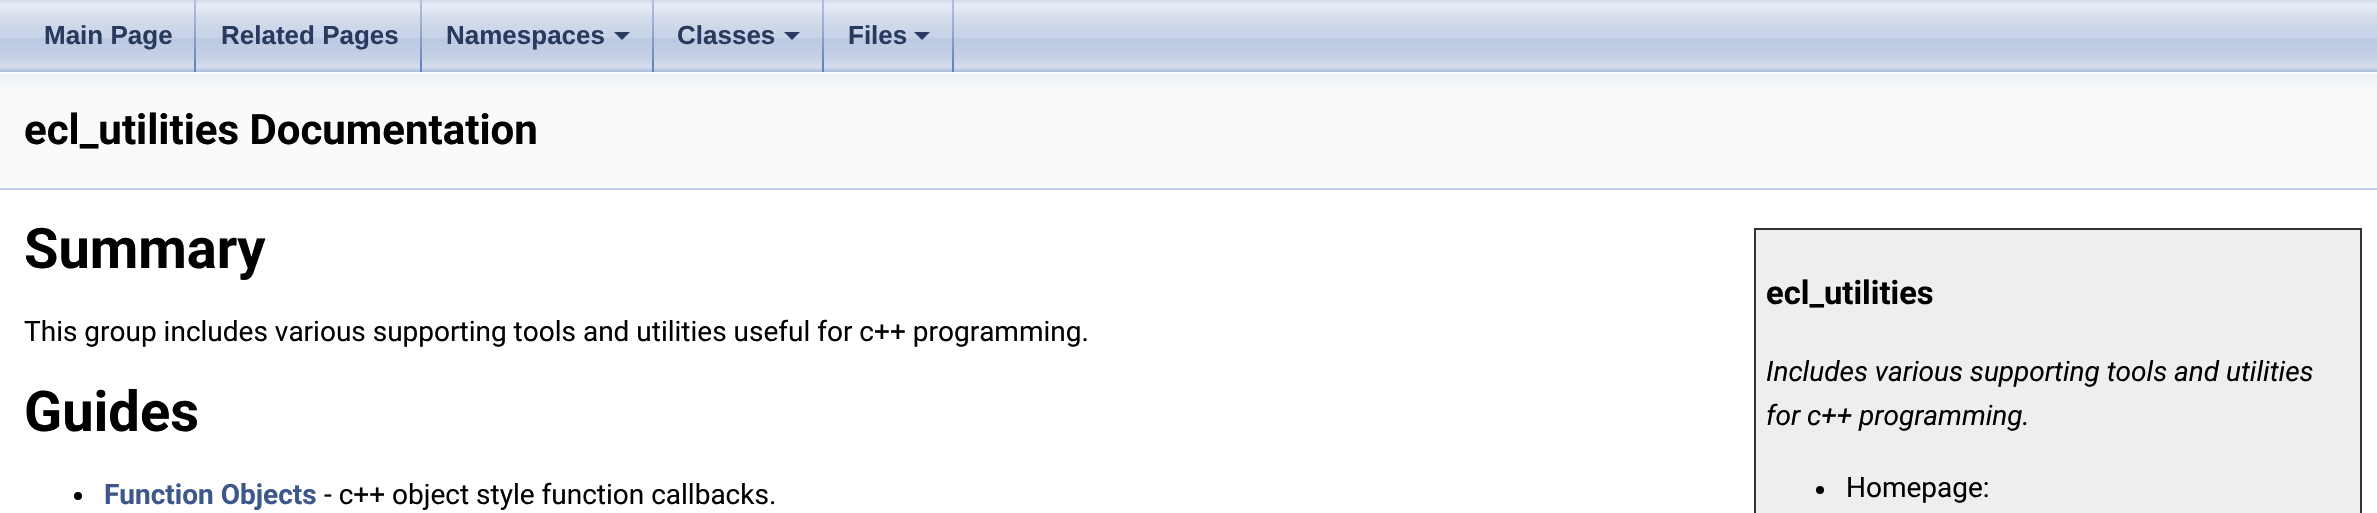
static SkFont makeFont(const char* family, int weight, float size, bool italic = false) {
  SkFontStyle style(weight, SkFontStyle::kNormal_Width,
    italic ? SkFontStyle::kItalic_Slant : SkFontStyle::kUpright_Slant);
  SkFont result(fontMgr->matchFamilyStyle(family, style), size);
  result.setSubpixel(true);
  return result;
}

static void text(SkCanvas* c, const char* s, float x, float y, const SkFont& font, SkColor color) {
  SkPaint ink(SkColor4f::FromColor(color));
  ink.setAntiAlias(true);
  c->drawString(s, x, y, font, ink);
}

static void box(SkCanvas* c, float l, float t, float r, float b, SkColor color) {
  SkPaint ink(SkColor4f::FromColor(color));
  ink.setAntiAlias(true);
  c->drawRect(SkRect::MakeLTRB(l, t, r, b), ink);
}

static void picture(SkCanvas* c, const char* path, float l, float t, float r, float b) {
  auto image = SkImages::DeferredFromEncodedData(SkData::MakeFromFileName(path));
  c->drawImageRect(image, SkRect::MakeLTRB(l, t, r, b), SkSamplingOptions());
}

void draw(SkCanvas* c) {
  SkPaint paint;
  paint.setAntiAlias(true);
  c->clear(0xffffffff);
  picture(c, "img_01.png", 0, 0, 2377, 72);
  picture(c, "img_02.png", 194, 0, 196, 72);
  SkFont face1 = makeFont("Liberation Sans", 700, 26);
  text(c, "Main Page", 44, 44, face1, 0xff283a5d);
  picture(c, "img_02.png", 420, 0, 422, 72);
  text(c, "Related Pages", 221, 44, face1, 0xff283a5d);
  picture(c, "img_02.png", 652, 0, 654, 72);
  text(c, "Namespaces", 446, 44, face1, 0xff283a5d);
  paint.setColor(0xff283a5d);
  c->drawPath(SkPathBuilder().moveTo(614, 32).lineTo(630, 32).lineTo(622, 40).close().detach(), paint);
  picture(c, "img_02.png", 822, 0, 824, 72);
  text(c, "Classes", 677, 44, face1, 0xff283a5d);
  c->drawPath(SkPathBuilder().moveTo(784, 32).lineTo(800, 32).lineTo(792, 40).close().detach(), paint);
  picture(c, "img_02.png", 952, 0, 954, 72);
  text(c, "Files", 848, 44, face1, 0xff283a5d);
  c->drawPath(SkPathBuilder().moveTo(914, 32).lineTo(930, 32).lineTo(922, 40).close().detach(), paint);
  box(c, 0, 88, 2377, 188, 0xfff9fafc);
  picture(c, "img_03.png", 0, 72, 2377, 88);
  box(c, 0, 188, 2377, 190, 0xffc4cfe5);
  SkFont face2 = makeFont("Roboto", 700, 42);
  text(c, "ecl_utilities Documentation", 24, 144, face2, 0xff000000);
  SkFont face3 = makeFont("Roboto", 700, 56);
  text(c, "Summary", 24, 268, face3, 0xff000000);
  SkFont face4 = makeFont("Roboto", 400, 28);
  text(c, "This group includes various supporting tools and utilities useful for c++ programming.", 24, 341, face4, 0xff000000);
  paint.setColor(0xffeeeeee);
  c->drawRect(SkRect::MakeLTRB(1755, 229, 2361, 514), paint);
  paint.setStyle(SkPaint::kStroke_Style);
  paint.setStrokeWidth(2);
  paint.setColor(0xff333333);
  c->drawRect(SkRect::MakeLTRB(1755, 229, 2361, 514), paint);
  SkFont face5 = makeFont("Roboto", 700, 32.75f);
  text(c, "ecl_utilities", 1766, 304, face5, 0xff000000);
  SkFont face6 = makeFont("Roboto", 400, 28, true);
  text(c, "Includes various supporting tools and utilities", 1766, 381, face6, 0xff000000);
  text(c, "for c++ programming.", 1766, 425, face6, 0xff000000);
  paint.setStyle(SkPaint::kFill_Style);
  paint.setColor(0xff000000);
  c->drawCircle(1820, 490, 4, paint);
  text(c, "Homepage:", 1846, 497, face4, 0xff000000);
  text(c, "Guides", 24, 431, face3, 0xff000000);
  c->drawCircle(78, 496, 4, paint);
  SkFont face7 = makeFont("Roboto", 700, 28);
  text(c, "Function Objects", 104, 504, face7, 0xff3d578c);
  text(c, "- c++ object style function callbacks.", 324, 504, face4, 0xff000000);
}
